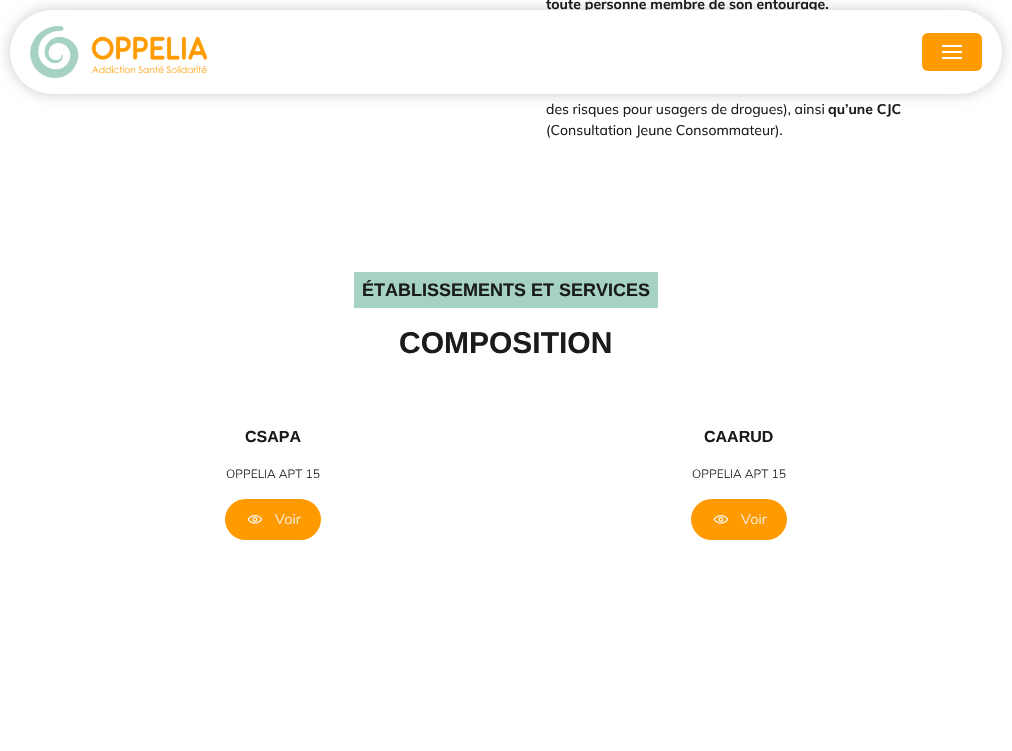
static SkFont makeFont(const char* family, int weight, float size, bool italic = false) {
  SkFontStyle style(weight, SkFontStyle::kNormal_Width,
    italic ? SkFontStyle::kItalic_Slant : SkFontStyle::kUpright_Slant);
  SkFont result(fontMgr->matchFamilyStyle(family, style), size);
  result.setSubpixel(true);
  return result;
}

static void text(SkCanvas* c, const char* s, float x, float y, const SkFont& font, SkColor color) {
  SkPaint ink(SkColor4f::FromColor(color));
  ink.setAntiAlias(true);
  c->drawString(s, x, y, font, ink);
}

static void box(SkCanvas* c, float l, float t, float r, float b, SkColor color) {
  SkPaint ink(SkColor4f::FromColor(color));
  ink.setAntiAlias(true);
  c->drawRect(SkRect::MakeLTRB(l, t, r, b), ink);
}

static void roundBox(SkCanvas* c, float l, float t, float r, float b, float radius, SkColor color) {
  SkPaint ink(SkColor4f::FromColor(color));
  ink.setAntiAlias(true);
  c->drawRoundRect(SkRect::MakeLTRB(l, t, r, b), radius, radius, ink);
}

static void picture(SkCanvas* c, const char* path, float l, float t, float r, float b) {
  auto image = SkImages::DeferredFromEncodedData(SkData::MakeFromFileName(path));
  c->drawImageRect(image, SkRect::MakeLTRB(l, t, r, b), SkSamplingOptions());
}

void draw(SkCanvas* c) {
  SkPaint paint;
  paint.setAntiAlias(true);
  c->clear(0xffffffff);
  paint.setColor(0x33000000);
  paint.setMaskFilter(SkMaskFilter::MakeBlur(kNormal_SkBlurStyle, 7));
  c->drawRoundRect(SkRect::MakeLTRB(10, 10, 1002, 94), 42, 42, paint);
  paint.setMaskFilter(nullptr);
  SkFont face1 = makeFont("Mulish", 700, 14);
  text(c, "toute personne membre de son entourage.", 546, 9, face1, 0xff1a1b1c);
  roundBox(c, 10, 10, 1002, 94, 42, 0xffffffff);
  picture(c, "img_01.png", 30, 26, 208, 78);
  roundBox(c, 922, 33, 982, 71, 6, 0xffff9b00);
  box(c, 942, 45, 962, 47, 0xffffffff);
  box(c, 942, 51, 962, 53, 0xffffffff);
  box(c, 942, 57, 962, 59, 0xffffffff);
  SkFont face2 = makeFont("Mulish", 400, 14);
  text(c, "des risques pour usagers de drogues), ainsi", 546, 114, face2, 0xff1a1b1c);
  text(c, "qu’une CJC", 828, 114, face1, 0xff1a1b1c);
  text(c, "(Consultation Jeune Consommateur).", 546, 135, face2, 0xff1a1b1c);
  box(c, 354, 272, 658, 308, 0xffa6d2c2);
  SkFont face3 = makeFont("Liberation Sans", 700, 18);
  text(c, "ÉTABLISSEMENTS ET SERVICES", 362, 296, face3, 0xff1a1b1c);
  SkFont face4 = makeFont("Liberation Sans", 700, 30);
  text(c, "COMPOSITION", 399, 353, face4, 0xff1a1b1c);
  SkFont face5 = makeFont("Liberation Sans", 700, 16);
  text(c, "CSAPA", 245, 442, face5, 0xff1a1b1c);
  SkFont face6 = makeFont("Mulish", 300, 12);
  text(c, "OPPELIA APT 15", 226, 478, face6, 0xff1a1b1c);
  roundBox(c, 225, 499, 321, 540, 20.5f, 0xffff9b00);
  picture(c, "img_02.png", 247, 515, 263, 524);
  SkFont face7 = makeFont("Mulish", 300, 14);
  text(c, "Voir", 275, 524, face7, 0xfff6f6f6);
  text(c, "CAARUD", 704, 442, face5, 0xff1a1b1c);
  text(c, "OPPELIA APT 15", 692, 478, face6, 0xff1a1b1c);
  roundBox(c, 691, 499, 787, 540, 20.5f, 0xffff9b00);
  picture(c, "img_02.png", 713, 515, 729, 524);
  text(c, "Voir", 741, 524, face7, 0xfff6f6f6);
}
